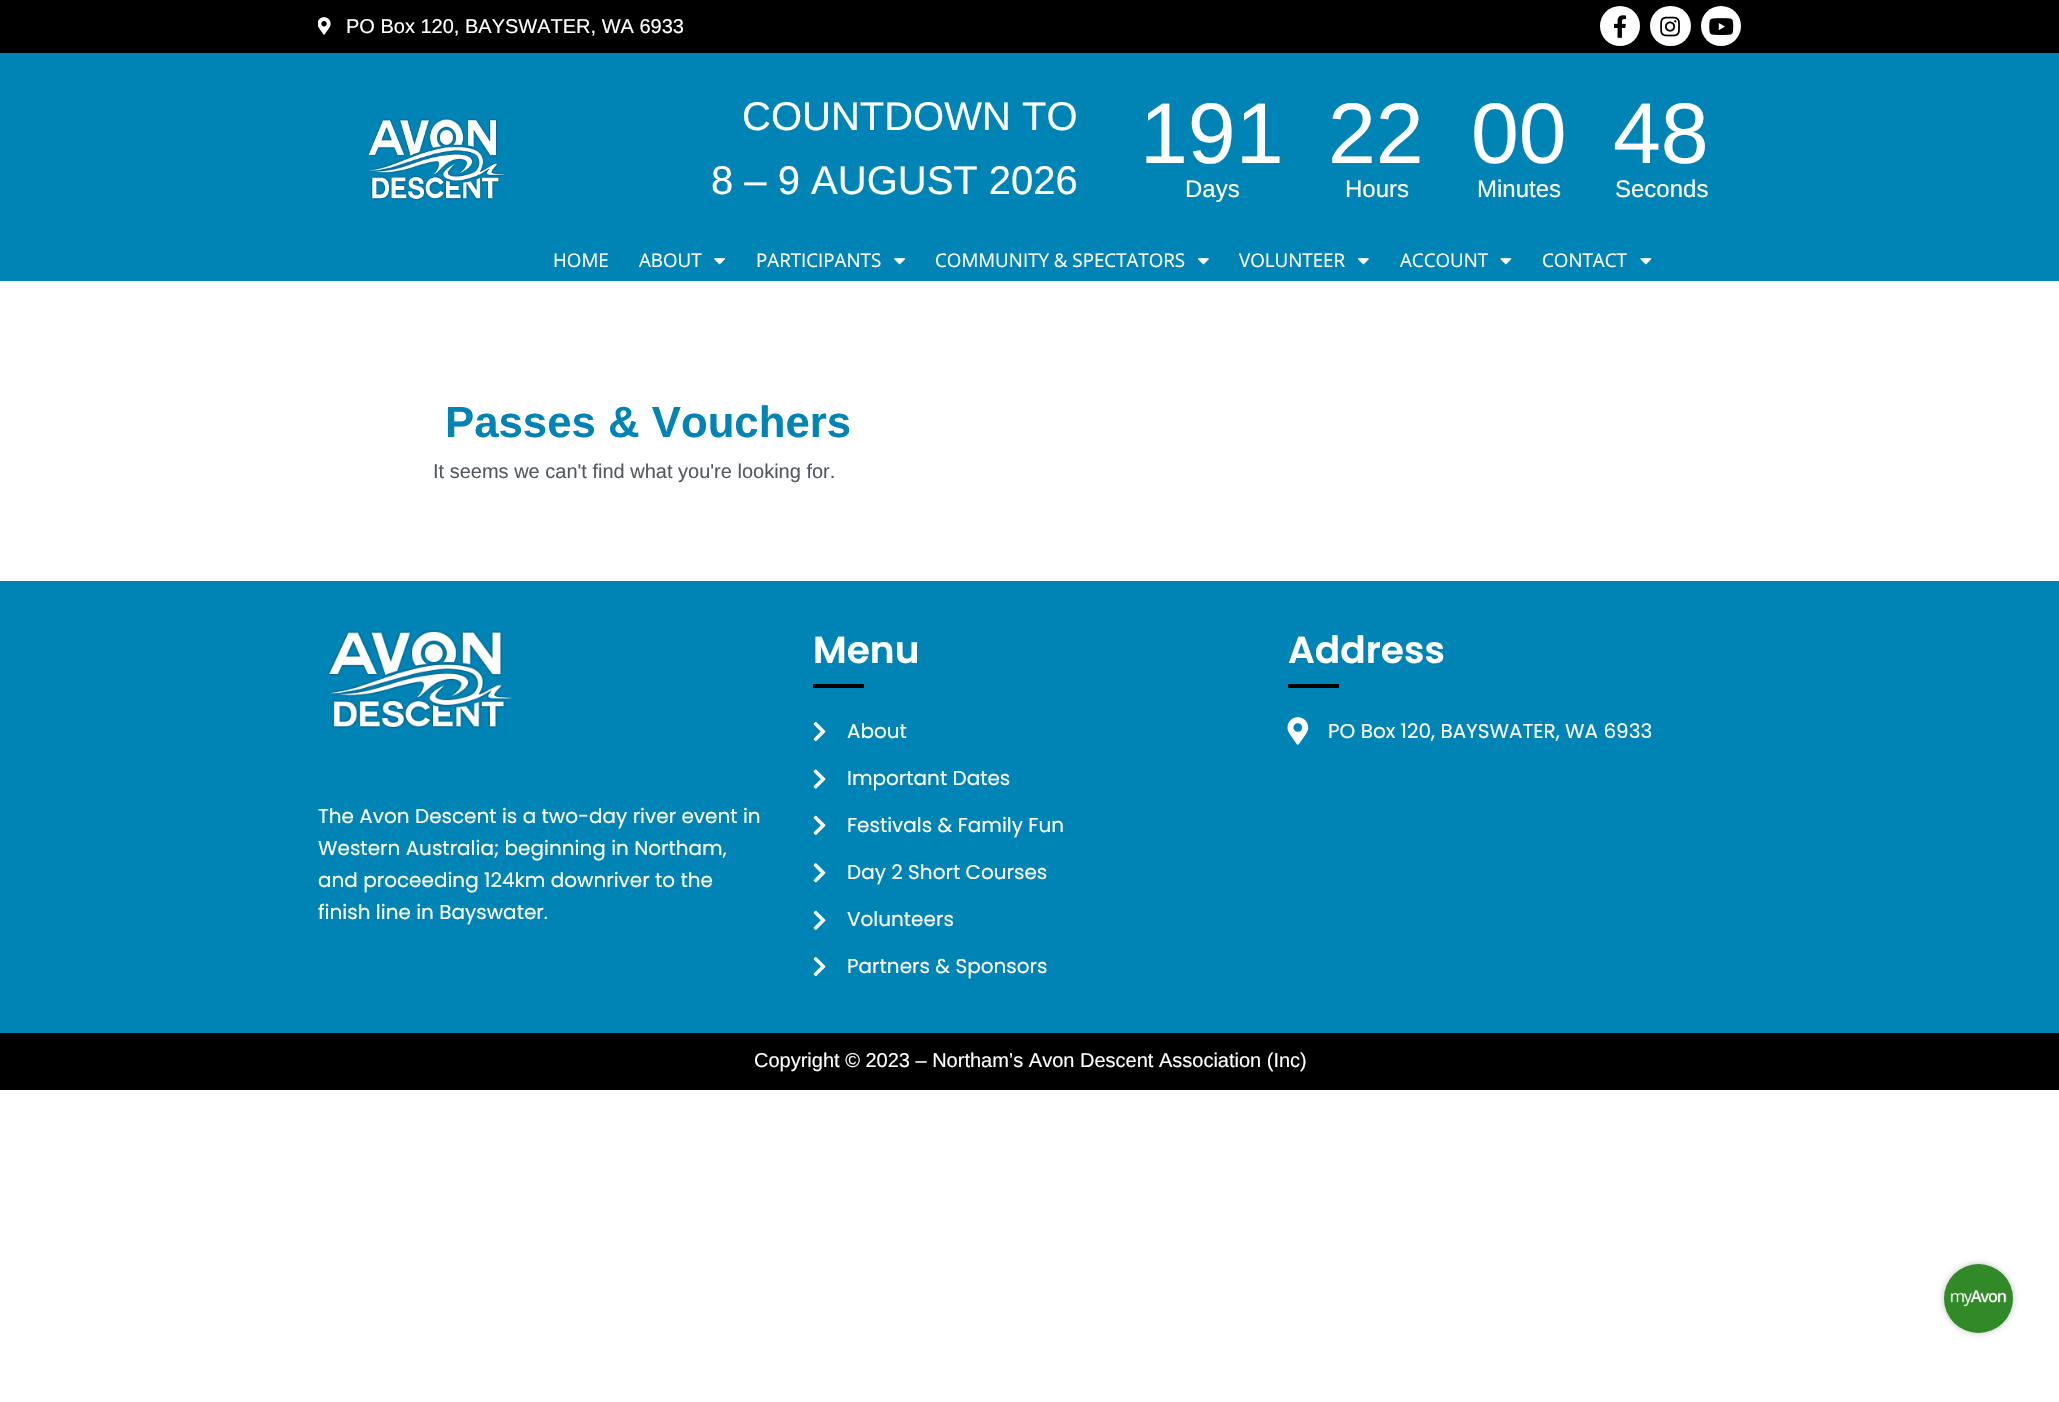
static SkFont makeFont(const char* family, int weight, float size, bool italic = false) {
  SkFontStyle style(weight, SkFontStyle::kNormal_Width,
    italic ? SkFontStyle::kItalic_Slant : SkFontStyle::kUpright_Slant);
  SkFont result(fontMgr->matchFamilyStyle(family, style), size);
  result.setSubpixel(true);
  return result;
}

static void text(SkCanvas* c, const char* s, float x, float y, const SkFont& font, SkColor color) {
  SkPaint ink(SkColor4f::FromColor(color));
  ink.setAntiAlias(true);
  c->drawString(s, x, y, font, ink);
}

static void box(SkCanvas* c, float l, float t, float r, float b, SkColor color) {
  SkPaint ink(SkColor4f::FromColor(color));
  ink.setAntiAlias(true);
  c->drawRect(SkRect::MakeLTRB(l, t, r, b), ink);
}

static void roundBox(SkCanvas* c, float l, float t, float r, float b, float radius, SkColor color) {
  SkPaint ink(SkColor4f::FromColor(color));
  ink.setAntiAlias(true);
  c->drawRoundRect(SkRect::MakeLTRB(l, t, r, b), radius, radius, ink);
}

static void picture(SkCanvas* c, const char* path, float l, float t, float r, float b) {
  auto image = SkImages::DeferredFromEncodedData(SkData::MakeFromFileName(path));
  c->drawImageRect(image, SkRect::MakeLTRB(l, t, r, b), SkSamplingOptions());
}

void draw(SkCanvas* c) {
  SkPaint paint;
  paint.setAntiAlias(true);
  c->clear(0xffffffff);
  box(c, 0, 0, 2059, 53, 0xff000000);
  picture(c, "img_01.png", 318, 17, 331, 35);
  SkFont face1 = makeFont("Liberation Sans", 400, 20);
  text(c, "PO Box 120, BAYSWATER, WA 6933", 346, 33, face1, 0xffffffff);
  paint.setColor(0xffffffff);
  c->drawCircle(1620, 26, 20, paint);
  picture(c, "img_02.png", 1614, 15, 1626, 38);
  roundBox(c, 1650, 6, 1691, 46, 20, 0xffffffff);
  picture(c, "img_03.png", 1660, 16, 1680, 37);
  c->drawCircle(1721, 26, 20, paint);
  picture(c, "img_04.png", 1709, 18, 1734, 35);
  box(c, 0, 53, 2059, 281, 0xff0084b5);
  picture(c, "img_05.png", 368, 118, 506, 200);
  SkFont face2 = makeFont("Liberation Sans", 400, 40);
  text(c, "COUNTDOWN TO", 742, 130, face2, 0xffffffff);
  text(c, "8 – 9 AUGUST 2026", 711, 194, face2, 0xffffffff);
  SkFont face3 = makeFont("Liberation Sans", 400, 86);
  text(c, "191", 1140, 163, face3, 0xffffffff);
  SkFont face4 = makeFont("Liberation Sans", 400, 24);
  text(c, "Days", 1185, 197, face4, 0xffffffff);
  text(c, "22", 1328, 163, face3, 0xffffffff);
  text(c, "Hours", 1345, 197, face4, 0xffffffff);
  text(c, "00", 1471, 163, face3, 0xffffffff);
  text(c, "Minutes", 1477, 197, face4, 0xffffffff);
  text(c, "48", 1613, 163, face3, 0xffffffff);
  text(c, "Seconds", 1615, 197, face4, 0xffffffff);
  SkFont face5 = makeFont("Open Sans", 400, 18.75f);
  text(c, "HOME", 553, 267, face5, 0xffffffff);
  text(c, "ABOUT", 639, 267, face5, 0xffffffff);
  picture(c, "img_06.png", 714, 258, 725, 265);
  text(c, "PARTICIPANTS", 756, 267, face5, 0xffffffff);
  picture(c, "img_06.png", 894, 258, 905, 265);
  text(c, "COMMUNITY & SPECTATORS", 935, 267, face5, 0xffffffff);
  picture(c, "img_07.png", 1197, 258, 1209, 265);
  text(c, "VOLUNTEER", 1239, 267, face5, 0xffffffff);
  picture(c, "img_07.png", 1357, 258, 1369, 265);
  text(c, "ACCOUNT", 1400, 267, face5, 0xffffffff);
  picture(c, "img_08.png", 1500, 258, 1512, 265);
  text(c, "CONTACT", 1542, 267, face5, 0xffffffff);
  picture(c, "img_08.png", 1640, 258, 1652, 265);
  SkFont face6 = makeFont("Liberation Sans", 700, 43.75f);
  text(c, "Passes & Vouchers", 445, 437, face6, 0xff0084b5);
  text(c, "It seems we can't find what you're looking for.", 433, 478, face1, 0xff54595f);
  box(c, 0, 581, 2059, 1033, 0xff0084b5);
  picture(c, "img_09.png", 328, 630, 513, 729);
  SkFont face7 = makeFont("Poppins", 400, 20);
  text(c, "The Avon Descent is a two-day river event in", 318, 823, face7, 0xffffffff);
  text(c, "Western Australia; beginning in Northam,", 318, 855, face7, 0xffffffff);
  text(c, "and proceeding 124km downriver to the", 318, 887, face7, 0xffffffff);
  text(c, "finish line in Bayswater.", 318, 919, face7, 0xffffffff);
  SkFont face8 = makeFont("Poppins", 600, 37.5f);
  text(c, "Menu", 813, 663, face8, 0xffffffff);
  box(c, 813, 684, 864, 688, 0xff000000);
  picture(c, "img_10.png", 813, 722, 826, 742);
  text(c, "About", 847, 738, face7, 0xffffffff);
  picture(c, "img_11.png", 813, 769, 826, 789);
  text(c, "Important Dates", 847, 785, face7, 0xffffffff);
  picture(c, "img_12.png", 813, 815, 826, 835);
  text(c, "Festivals & Family Fun", 847, 832, face7, 0xffffffff);
  picture(c, "img_13.png", 813, 863, 826, 883);
  text(c, "Day 2 Short Courses", 847, 879, face7, 0xffffffff);
  picture(c, "img_12.png", 813, 910, 826, 930);
  text(c, "Volunteers", 847, 926, face7, 0xffffffff);
  picture(c, "img_10.png", 813, 957, 826, 977);
  text(c, "Partners & Sponsors", 847, 973, face7, 0xffffffff);
  text(c, "Address", 1288, 663, face8, 0xffffffff);
  box(c, 1288, 684, 1339, 688, 0xff000000);
  picture(c, "img_14.png", 1287, 717, 1309, 745);
  text(c, "PO Box 120, BAYSWATER, WA 6933", 1328, 738, face7, 0xffffffff);
  box(c, 0, 1033, 2059, 1090, 0xff000000);
  text(c, "Copyright © 2023 – Northam’s Avon Descent Association (Inc)", 754, 1067, face1, 0xffffffff);
  paint.setColor(0x40000000);
  paint.setMaskFilter(SkMaskFilter::MakeBlur(kNormal_SkBlurStyle, 3));
  c->drawRoundRect(SkRect::MakeLTRB(1944, 1264, 2013, 1333), 34.5f, 34.5f, paint);
  paint.setMaskFilter(nullptr);
  paint.setColor(0xff328927);
  c->drawCircle(1978.5f, 1298.5f, 34.5f, paint);
  picture(c, "img_15.png", 1950, 1289, 2007, 1307);
}
